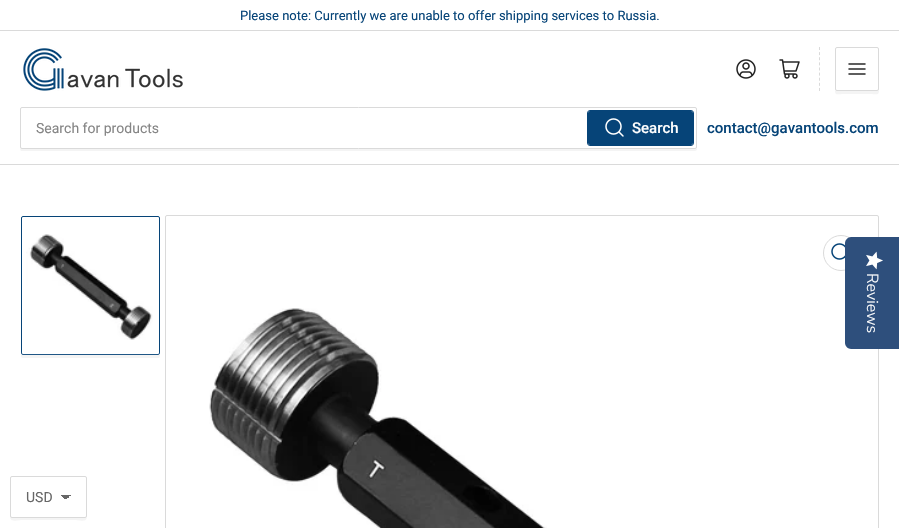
static SkFont makeFont(const char* family, int weight, float size, bool italic = false) {
  SkFontStyle style(weight, SkFontStyle::kNormal_Width,
    italic ? SkFontStyle::kItalic_Slant : SkFontStyle::kUpright_Slant);
  SkFont result(fontMgr->matchFamilyStyle(family, style), size);
  result.setSubpixel(true);
  return result;
}

static void text(SkCanvas* c, const char* s, float x, float y, const SkFont& font, SkColor color) {
  SkPaint ink(SkColor4f::FromColor(color));
  ink.setAntiAlias(true);
  c->drawString(s, x, y, font, ink);
}

static void box(SkCanvas* c, float l, float t, float r, float b, SkColor color) {
  SkPaint ink(SkColor4f::FromColor(color));
  ink.setAntiAlias(true);
  c->drawRect(SkRect::MakeLTRB(l, t, r, b), ink);
}

static void roundBox(SkCanvas* c, float l, float t, float r, float b, float radius, SkColor color) {
  SkPaint ink(SkColor4f::FromColor(color));
  ink.setAntiAlias(true);
  c->drawRoundRect(SkRect::MakeLTRB(l, t, r, b), radius, radius, ink);
}

static void picture(SkCanvas* c, const char* path, float l, float t, float r, float b) {
  auto image = SkImages::DeferredFromEncodedData(SkData::MakeFromFileName(path));
  c->drawImageRect(image, SkRect::MakeLTRB(l, t, r, b), SkSamplingOptions());
}

void draw(SkCanvas* c) {
  SkPaint paint;
  paint.setAntiAlias(true);
  c->clear(0xffffffff);
  box(c, 0, 30, 899, 31, 0xffdadada);
  SkFont face1 = makeFont("Roboto", 400, 13);
  text(c, "Please note: Currently we are unable to offer shipping services to Russia.", 240, 20, face1, 0xff064478);
  box(c, 0, 164, 899, 165, 0xffdadada);
  picture(c, "img_01.png", 23, 48, 183, 91);
  picture(c, "img_02.png", 736, 59, 756, 79);
  picture(c, "img_03.png", 779, 59, 800, 79);
  paint.setStyle(SkPaint::kStroke_Style);
  paint.setStrokeWidth(1);
  paint.setColor(0xffdadada);
  paint.setPathEffect(SkDashPathEffect::Make({{3, 2.12f}}, 0));
  c->drawPath(SkPathBuilder().moveTo(819.5f, 47).lineTo(819.5f, 91).detach(), paint);
  paint.setPathEffect(nullptr);
  paint.setStyle(SkPaint::kFill_Style);
  paint.setColor(0xfff4f4f4);
  c->drawPath(SkPathBuilder().moveTo(835, 89).cubicTo(835, 96, 836, 94, 844, 94).lineTo(870, 94).cubicTo(878, 94, 879, 96, 879, 89).cubicTo(879, 90, 878, 91, 877, 91).lineTo(837, 91).cubicTo(836, 91, 835, 90, 835, 89).close().detach(), paint);
  paint.setStyle(SkPaint::kStroke_Style);
  paint.setColor(0xffdadada);
  c->drawRoundRect(SkRect::MakeLTRB(835.5f, 47.5f, 878.5f, 90.5f), 1.5f, 1.5f, paint);
  picture(c, "img_04.png", 848, 63, 866, 75);
  paint.setStyle(SkPaint::kFill_Style);
  paint.setColor(0xfff4f4f4);
  c->drawPath(SkPathBuilder().moveTo(20, 147).cubicTo(20, 148, 20, 150, 21, 151).lineTo(695, 151).lineTo(697, 150).lineTo(697, 147).cubicTo(697, 148, 696, 149, 695, 149).lineTo(22, 149).cubicTo(21, 149, 20, 148, 20, 147).close().detach(), paint);
  paint.setStyle(SkPaint::kStroke_Style);
  paint.setColor(0xffdadada);
  c->drawRoundRect(SkRect::MakeLTRB(20.5f, 107.5f, 696.5f, 148.5f), 1.5f, 1.5f, paint);
  SkFont face2 = makeFont("Roboto", 400, 14);
  text(c, "Search for products", 36, 133, face2, 0xff858585);
  paint.setColor(0xff064478);
  c->drawRoundRect(SkRect::MakeLTRB(587.5f, 110.5f, 693.5f, 145.5f), 2.5f, 2.5f, paint);
  roundBox(c, 588, 111, 693, 145, 2, 0xff064478);
  picture(c, "img_05.png", 605, 118, 624, 137);
  SkFont face3 = makeFont("Roboto", 500, 15);
  text(c, "Search", 632, 133, face3, 0xffffffff);
  text(c, "contact@gavantools.com", 707, 133, face3, 0xff064478);
  paint.setStyle(SkPaint::kFill_Style);
  paint.setColor(0xfff4f4f4);
  c->drawPath(SkPathBuilder().moveTo(21, 353).lineTo(21, 356).cubicTo(21, 357, 22, 358, 23, 358).lineTo(158, 358).cubicTo(159, 358, 160, 357, 160, 356).lineTo(160, 353).cubicTo(160, 354, 159, 355, 158, 355).lineTo(23, 355).lineTo(21, 354).close().detach(), paint);
  paint.setStyle(SkPaint::kStroke_Style);
  paint.setColor(0xff064478);
  c->drawRoundRect(SkRect::MakeLTRB(21.5f, 216.5f, 159.5f, 354.5f), 1.5f, 1.5f, paint);
  picture(c, "img_06.png", 26, 234, 153, 340);
  paint.setStyle(SkPaint::kFill_Style);
  {
    const SkColor colors[] = {0xffffffff, 0x00ffffff};
    const float stops[] = {0, 1};
    const SkPoint ends[] = {{90, 386}, {90, 351}};
    paint.setShader(SkGradientShader::MakeLinear(ends, colors, stops, 2, SkTileMode::kClamp));
    paint.setAlpha(255);
  }
  c->drawRect(SkRect::MakeLTRB(21, 352, 160, 355), paint);
  paint.setStyle(SkPaint::kStroke_Style);
  paint.setShader(nullptr);
  paint.setColor(0xffdadada);
  c->drawRoundRect(SkRect::MakeLTRB(165.5f, 215.5f, 878.5f, 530.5f), 1.5f, 1.5f, paint);
  c->drawCircle(841, 253, 17.5f, paint);
  picture(c, "img_07.png", 831, 243, 845, 260);
  picture(c, "img_08.png", 209, 308, 547, 528);
  paint.setStyle(SkPaint::kFill_Style);
  paint.setColor(0xff2e4f7c);
  c->drawPath(SkPathBuilder().moveTo(899, 237).lineTo(899, 349).lineTo(851, 349).cubicTo(848, 349, 845, 346, 845, 343).lineTo(845, 243).cubicTo(845, 240, 848, 237, 851, 237).close().detach(), paint);
  picture(c, "img_09.png", 866, 251, 883, 270);
  SkFont face4 = makeFont("Nunito Sans", 300, 16);
  c->save();
  c->rotate(90, 867, 273);
  text(c, "Reviews", 867, 273, face4, 0xffffffff);
  c->restore();
  paint.setColor(0xfff4f4f4);
  c->drawPath(SkPathBuilder().moveTo(10, 516).cubicTo(10, 523, 16, 520, 24, 520).lineTo(73, 520).cubicTo(81, 520, 87, 523, 87, 516).cubicTo(87, 517, 86, 518, 85, 518).lineTo(12, 518).lineTo(11, 517).close().detach(), paint);
  {
    const SkColor colors[] = {0xff676767, 0xffffffff};
    const float stops[] = {0.5f, 0.5f};
    const SkPoint ends[] = {{66, 495}, {71, 500}};
    paint.setShader(SkGradientShader::MakeLinear(ends, colors, stops, 2, SkTileMode::kClamp));
    paint.setAlpha(255);
  }
  c->drawRect(SkRect::MakeLTRB(66, 495, 71, 499), paint);
  {
    const SkColor colors[] = {0xffffffff, 0xff676767};
    const float stops[] = {0.5f, 0.5f};
    const SkPoint ends[] = {{61, 500}, {66, 495}};
    paint.setShader(SkGradientShader::MakeLinear(ends, colors, stops, 2, SkTileMode::kClamp));
    paint.setAlpha(255);
  }
  c->drawRect(SkRect::MakeLTRB(61, 495, 66, 499), paint);
  paint.setStyle(SkPaint::kStroke_Style);
  paint.setShader(nullptr);
  paint.setColor(0xffdadada);
  c->drawRoundRect(SkRect::MakeLTRB(10.5f, 476.5f, 86.5f, 517.5f), 1.5f, 1.5f, paint);
  text(c, "USD", 26, 502, face2, 0xff676767);
}
